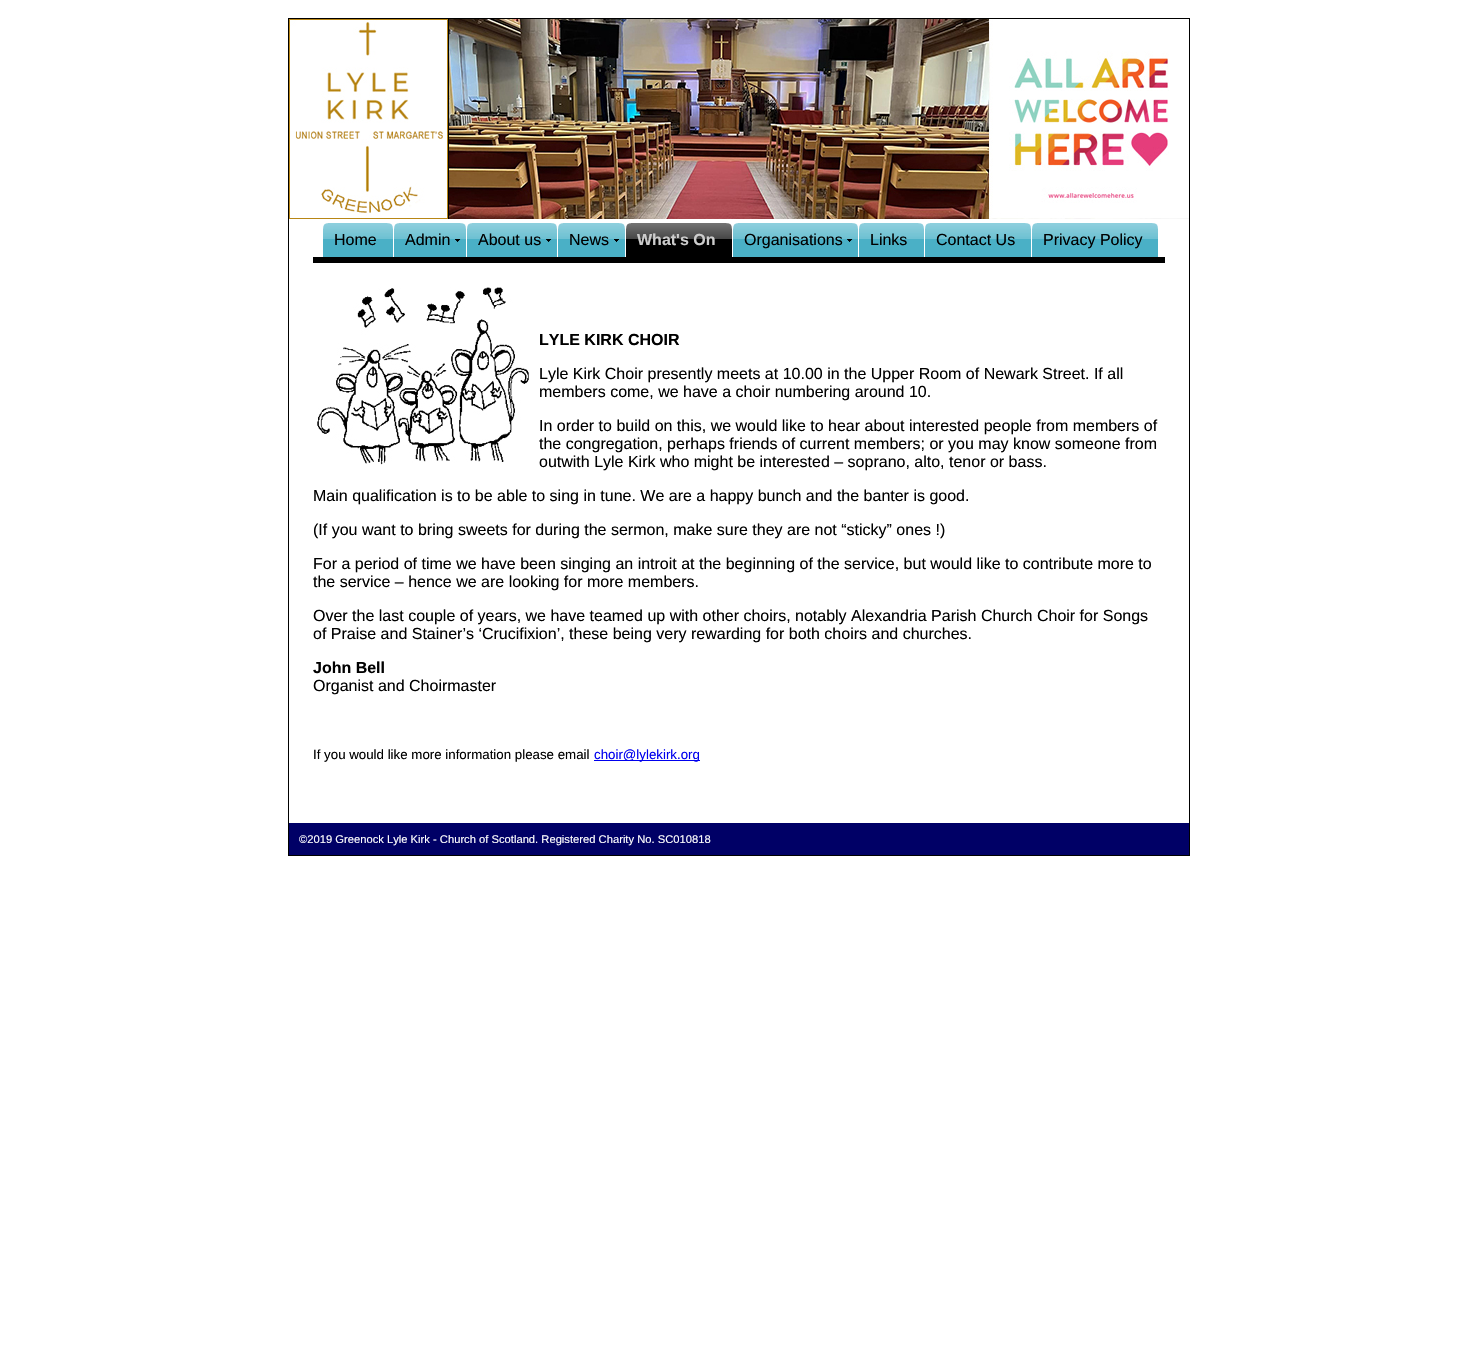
static SkFont makeFont(const char* family, int weight, float size, bool italic = false) {
  SkFontStyle style(weight, SkFontStyle::kNormal_Width,
    italic ? SkFontStyle::kItalic_Slant : SkFontStyle::kUpright_Slant);
  SkFont result(fontMgr->matchFamilyStyle(family, style), size);
  result.setSubpixel(true);
  return result;
}

static void text(SkCanvas* c, const char* s, float x, float y, const SkFont& font, SkColor color) {
  SkPaint ink(SkColor4f::FromColor(color));
  ink.setAntiAlias(true);
  c->drawString(s, x, y, font, ink);
}

static void box(SkCanvas* c, float l, float t, float r, float b, SkColor color) {
  SkPaint ink(SkColor4f::FromColor(color));
  ink.setAntiAlias(true);
  c->drawRect(SkRect::MakeLTRB(l, t, r, b), ink);
}

static void picture(SkCanvas* c, const char* path, float l, float t, float r, float b) {
  auto image = SkImages::DeferredFromEncodedData(SkData::MakeFromFileName(path));
  c->drawImageRect(image, SkRect::MakeLTRB(l, t, r, b), SkSamplingOptions());
}

void draw(SkCanvas* c) {
  SkPaint paint;
  paint.setAntiAlias(true);
  c->clear(0xffffffff);
  paint.setStyle(SkPaint::kStroke_Style);
  paint.setStrokeWidth(1);
  paint.setColor(0xff000000);
  c->drawRect(SkRect::MakeLTRB(288.5f, 18.5f, 1189.5f, 855.5f), paint);
  picture(c, "img_01.png", 289, 19, 1189, 219);
  box(c, 313, 257, 1165, 263, 0xff000000);
  picture(c, "img_02.png", 323, 223, 328, 257);
  picture(c, "img_03.png", 328, 223, 393, 257);
  SkFont face1 = makeFont("Liberation Sans", 400, 16);
  text(c, "Home", 334, 245, face1, 0xff000000);
  picture(c, "img_02.png", 394, 223, 399, 257);
  picture(c, "img_04.png", 399, 223, 466, 257);
  text(c, "Admin", 405, 245, face1, 0xff000000);
  picture(c, "img_02.png", 467, 223, 472, 257);
  picture(c, "img_05.png", 472, 223, 557, 257);
  text(c, "About us", 478, 245, face1, 0xff000000);
  picture(c, "img_02.png", 558, 223, 563, 257);
  picture(c, "img_06.png", 563, 223, 625, 257);
  text(c, "News", 569, 245, face1, 0xff000000);
  picture(c, "img_07.png", 626, 223, 631, 257);
  picture(c, "img_08.png", 631, 223, 732, 257);
  SkFont face2 = makeFont("Liberation Sans", 700, 16);
  text(c, "What's On", 637, 245, face2, 0xffcccccc);
  picture(c, "img_02.png", 733, 223, 738, 257);
  picture(c, "img_09.png", 738, 223, 858, 257);
  text(c, "Organisations", 744, 245, face1, 0xff000000);
  picture(c, "img_02.png", 859, 223, 864, 257);
  picture(c, "img_10.png", 864, 223, 924, 257);
  text(c, "Links", 870, 245, face1, 0xff000000);
  picture(c, "img_02.png", 925, 223, 930, 257);
  picture(c, "img_11.png", 930, 223, 1031, 257);
  text(c, "Contact Us", 936, 245, face1, 0xff000000);
  picture(c, "img_02.png", 1032, 223, 1037, 257);
  picture(c, "img_12.png", 1037, 223, 1158, 257);
  text(c, "Privacy Policy", 1043, 245, face1, 0xff000000);
  picture(c, "img_13.png", 317, 287, 529, 465);
  text(c, "LYLE KIRK CHOIR", 539, 345, face2, 0xff000000);
  text(c, "Lyle Kirk Choir presently meets at 10.00 in the Upper Room of Newark Street. If all", 539, 379, face1, 0xff000000);
  text(c, "members come, we have a choir numbering around 10.", 539, 397, face1, 0xff000000);
  text(c, "In order to build on this, we would like to hear about interested people from members of", 539, 431, face1, 0xff000000);
  text(c, "the congregation, perhaps friends of current members; or you may know someone from", 539, 449, face1, 0xff000000);
  text(c, "outwith Lyle Kirk who might be interested – soprano, alto, tenor or bass.", 539, 467, face1, 0xff000000);
  text(c, "Main qualification is to be able to sing in tune. We are a happy bunch and the banter is good.", 313, 501, face1, 0xff000000);
  text(c, "(If you want to bring sweets for during the sermon, make sure they are not “sticky” ones !)", 313, 535, face1, 0xff000000);
  text(c, "For a period of time we have been singing an introit at the beginning of the service, but would like to contribute more to", 313, 569, face1, 0xff000000);
  text(c, "the service – hence we are looking for more members.", 313, 587, face1, 0xff000000);
  text(c, "Over the last couple of years, we have teamed up with other choirs, notably Alexandria Parish Church Choir for Songs", 313, 621, face1, 0xff000000);
  text(c, "of Praise and Stainer’s ‘Crucifixion’, these being very rewarding for both choirs and churches.", 313, 639, face1, 0xff000000);
  text(c, "John Bell", 313, 673, face2, 0xff000000);
  text(c, "Organist and Choirmaster", 313, 691, face1, 0xff000000);
  SkFont face3 = makeFont("Liberation Sans", 400, 13.3f);
  text(c, "If you would like more information please email", 313, 759, face3, 0xff000000);
  box(c, 594, 760, 700, 761, 0xff0000ee);
  text(c, "choir@lylekirk.org", 594, 759, face3, 0xff0000ee);
  box(c, 289, 823, 1189, 855, 0xff000066);
  SkFont face4 = makeFont("Liberation Sans", 400, 11.2f);
  text(c, "©2019 Greenock Lyle Kirk - Church of Scotland. Registered Charity No. SC010818", 299, 843, face4, 0xffffffff);
}
